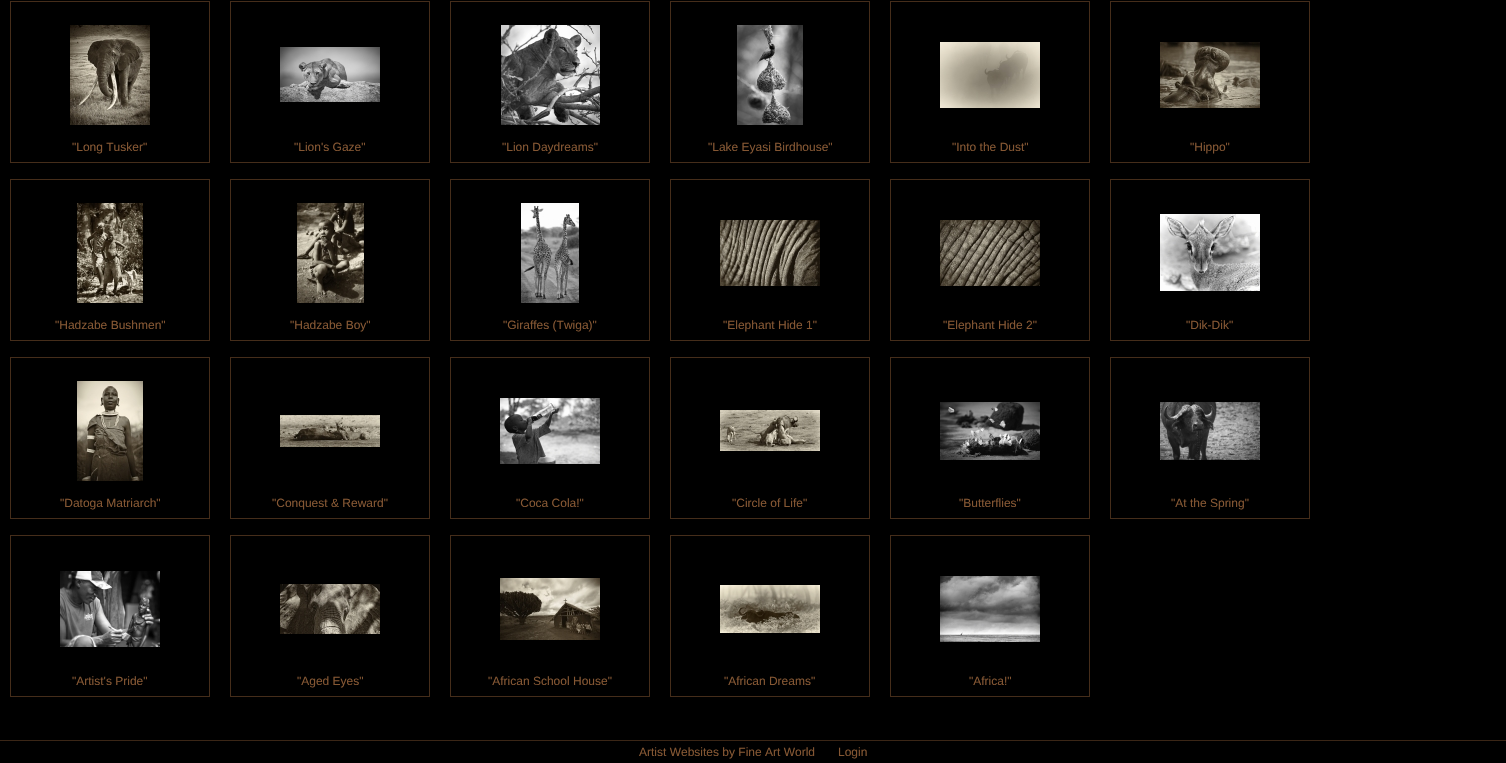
static SkFont makeFont(const char* family, int weight, float size, bool italic = false) {
  SkFontStyle style(weight, SkFontStyle::kNormal_Width,
    italic ? SkFontStyle::kItalic_Slant : SkFontStyle::kUpright_Slant);
  SkFont result(fontMgr->matchFamilyStyle(family, style), size);
  result.setSubpixel(true);
  return result;
}

static void text(SkCanvas* c, const char* s, float x, float y, const SkFont& font, SkColor color) {
  SkPaint ink(SkColor4f::FromColor(color));
  ink.setAntiAlias(true);
  c->drawString(s, x, y, font, ink);
}

static void box(SkCanvas* c, float l, float t, float r, float b, SkColor color) {
  SkPaint ink(SkColor4f::FromColor(color));
  ink.setAntiAlias(true);
  c->drawRect(SkRect::MakeLTRB(l, t, r, b), ink);
}

static void picture(SkCanvas* c, const char* path, float l, float t, float r, float b) {
  auto image = SkImages::DeferredFromEncodedData(SkData::MakeFromFileName(path));
  c->drawImageRect(image, SkRect::MakeLTRB(l, t, r, b), SkSamplingOptions());
}

void draw(SkCanvas* c) {
  SkPaint paint;
  paint.setAntiAlias(true);
  c->clear(0xff000000);
  box(c, 10, 1, 210, 2, 0xff452d1a);
  box(c, 209, 1, 210, 163, 0xff452d1a);
  box(c, 10, 162, 210, 163, 0xff452d1a);
  box(c, 10, 1, 11, 163, 0xff452d1a);
  picture(c, "img_01.png", 70, 25, 150, 125);
  SkFont face1 = makeFont("Liberation Sans", 400, 12);
  text(c, "\"Long Tusker\"", 72, 151, face1, 0xff855733);
  box(c, 230, 1, 430, 2, 0xff452d1a);
  box(c, 429, 1, 430, 163, 0xff452d1a);
  box(c, 230, 162, 430, 163, 0xff452d1a);
  box(c, 230, 1, 231, 163, 0xff452d1a);
  picture(c, "img_02.png", 280, 47, 380, 102);
  text(c, "\"Lion's Gaze\"", 294, 151, face1, 0xff855733);
  box(c, 450, 1, 650, 2, 0xff452d1a);
  box(c, 649, 1, 650, 163, 0xff452d1a);
  box(c, 450, 162, 650, 163, 0xff452d1a);
  box(c, 450, 1, 451, 163, 0xff452d1a);
  picture(c, "img_03.png", 501, 25, 600, 125);
  text(c, "\"Lion Daydreams\"", 502, 151, face1, 0xff855733);
  box(c, 670, 1, 870, 2, 0xff452d1a);
  box(c, 869, 1, 870, 163, 0xff452d1a);
  box(c, 670, 162, 870, 163, 0xff452d1a);
  box(c, 670, 1, 671, 163, 0xff452d1a);
  picture(c, "img_04.png", 737, 25, 803, 125);
  text(c, "\"Lake Eyasi Birdhouse\"", 708, 151, face1, 0xff855733);
  box(c, 890, 1, 1090, 2, 0xff452d1a);
  box(c, 1089, 1, 1090, 163, 0xff452d1a);
  box(c, 890, 162, 1090, 163, 0xff452d1a);
  box(c, 890, 1, 891, 163, 0xff452d1a);
  picture(c, "img_05.png", 940, 42, 1040, 108);
  text(c, "\"Into the Dust\"", 952, 151, face1, 0xff855733);
  box(c, 1110, 1, 1310, 2, 0xff452d1a);
  box(c, 1309, 1, 1310, 163, 0xff452d1a);
  box(c, 1110, 162, 1310, 163, 0xff452d1a);
  box(c, 1110, 1, 1111, 163, 0xff452d1a);
  picture(c, "img_06.png", 1160, 42, 1260, 108);
  text(c, "\"Hippo\"", 1190, 151, face1, 0xff855733);
  box(c, 10, 179, 210, 180, 0xff452d1a);
  box(c, 209, 179, 210, 341, 0xff452d1a);
  box(c, 10, 340, 210, 341, 0xff452d1a);
  box(c, 10, 179, 11, 341, 0xff452d1a);
  picture(c, "img_07.png", 77, 203, 143, 303);
  text(c, "\"Hadzabe Bushmen\"", 55, 329, face1, 0xff855733);
  box(c, 230, 179, 430, 180, 0xff452d1a);
  box(c, 429, 179, 430, 341, 0xff452d1a);
  box(c, 230, 340, 430, 341, 0xff452d1a);
  box(c, 230, 179, 231, 341, 0xff452d1a);
  picture(c, "img_08.png", 297, 203, 364, 303);
  text(c, "\"Hadzabe Boy\"", 290, 329, face1, 0xff855733);
  box(c, 450, 179, 650, 180, 0xff452d1a);
  box(c, 649, 179, 650, 341, 0xff452d1a);
  box(c, 450, 340, 650, 341, 0xff452d1a);
  box(c, 450, 179, 451, 341, 0xff452d1a);
  picture(c, "img_09.png", 521, 203, 579, 303);
  text(c, "\"Giraffes (Twiga)\"", 503, 329, face1, 0xff855733);
  box(c, 670, 179, 870, 180, 0xff452d1a);
  box(c, 869, 179, 870, 341, 0xff452d1a);
  box(c, 670, 340, 870, 341, 0xff452d1a);
  box(c, 670, 179, 671, 341, 0xff452d1a);
  picture(c, "img_10.png", 720, 220, 820, 286);
  text(c, "\"Elephant Hide 1\"", 723, 329, face1, 0xff855733);
  box(c, 890, 179, 1090, 180, 0xff452d1a);
  box(c, 1089, 179, 1090, 341, 0xff452d1a);
  box(c, 890, 340, 1090, 341, 0xff452d1a);
  box(c, 890, 179, 891, 341, 0xff452d1a);
  picture(c, "img_11.png", 940, 220, 1040, 286);
  text(c, "\"Elephant Hide 2\"", 943, 329, face1, 0xff855733);
  box(c, 1110, 179, 1310, 180, 0xff452d1a);
  box(c, 1309, 179, 1310, 341, 0xff452d1a);
  box(c, 1110, 340, 1310, 341, 0xff452d1a);
  box(c, 1110, 179, 1111, 341, 0xff452d1a);
  picture(c, "img_12.png", 1160, 214, 1260, 291);
  text(c, "\"Dik-Dik\"", 1186, 329, face1, 0xff855733);
  box(c, 10, 357, 210, 358, 0xff452d1a);
  box(c, 209, 357, 210, 519, 0xff452d1a);
  box(c, 10, 518, 210, 519, 0xff452d1a);
  box(c, 10, 357, 11, 519, 0xff452d1a);
  picture(c, "img_13.png", 77, 381, 143, 481);
  text(c, "\"Datoga Matriarch\"", 60, 507, face1, 0xff855733);
  box(c, 230, 357, 430, 358, 0xff452d1a);
  box(c, 429, 357, 430, 519, 0xff452d1a);
  box(c, 230, 518, 430, 519, 0xff452d1a);
  box(c, 230, 357, 231, 519, 0xff452d1a);
  picture(c, "img_14.png", 280, 415, 380, 447);
  text(c, "\"Conquest & Reward\"", 272, 507, face1, 0xff855733);
  box(c, 450, 357, 650, 358, 0xff452d1a);
  box(c, 649, 357, 650, 519, 0xff452d1a);
  box(c, 450, 518, 650, 519, 0xff452d1a);
  box(c, 450, 357, 451, 519, 0xff452d1a);
  picture(c, "img_15.png", 500, 398, 600, 464);
  text(c, "\"Coca Cola!\"", 516, 507, face1, 0xff855733);
  box(c, 670, 357, 870, 358, 0xff452d1a);
  box(c, 869, 357, 870, 519, 0xff452d1a);
  box(c, 670, 518, 870, 519, 0xff452d1a);
  box(c, 670, 357, 671, 519, 0xff452d1a);
  picture(c, "img_16.png", 720, 410, 820, 451);
  text(c, "\"Circle of Life\"", 732, 507, face1, 0xff855733);
  box(c, 890, 357, 1090, 358, 0xff452d1a);
  box(c, 1089, 357, 1090, 519, 0xff452d1a);
  box(c, 890, 518, 1090, 519, 0xff452d1a);
  box(c, 890, 357, 891, 519, 0xff452d1a);
  picture(c, "img_17.png", 940, 402, 1040, 460);
  text(c, "\"Butterflies\"", 959, 507, face1, 0xff855733);
  box(c, 1110, 357, 1310, 358, 0xff452d1a);
  box(c, 1309, 357, 1310, 519, 0xff452d1a);
  box(c, 1110, 518, 1310, 519, 0xff452d1a);
  box(c, 1110, 357, 1111, 519, 0xff452d1a);
  picture(c, "img_18.png", 1160, 402, 1260, 460);
  text(c, "\"At the Spring\"", 1171, 507, face1, 0xff855733);
  box(c, 10, 535, 210, 536, 0xff452d1a);
  box(c, 209, 535, 210, 697, 0xff452d1a);
  box(c, 10, 696, 210, 697, 0xff452d1a);
  box(c, 10, 535, 11, 697, 0xff452d1a);
  picture(c, "img_19.png", 60, 571, 160, 647);
  text(c, "\"Artist's Pride\"", 72, 685, face1, 0xff855733);
  box(c, 230, 535, 430, 536, 0xff452d1a);
  box(c, 429, 535, 430, 697, 0xff452d1a);
  box(c, 230, 696, 430, 697, 0xff452d1a);
  box(c, 230, 535, 231, 697, 0xff452d1a);
  picture(c, "img_20.png", 280, 584, 380, 634);
  text(c, "\"Aged Eyes\"", 297, 685, face1, 0xff855733);
  box(c, 450, 535, 650, 536, 0xff452d1a);
  box(c, 649, 535, 650, 697, 0xff452d1a);
  box(c, 450, 696, 650, 697, 0xff452d1a);
  box(c, 450, 535, 451, 697, 0xff452d1a);
  picture(c, "img_21.png", 500, 578, 600, 640);
  text(c, "\"African School House\"", 488, 685, face1, 0xff855733);
  box(c, 670, 535, 870, 536, 0xff452d1a);
  box(c, 869, 535, 870, 697, 0xff452d1a);
  box(c, 670, 696, 870, 697, 0xff452d1a);
  box(c, 670, 535, 671, 697, 0xff452d1a);
  picture(c, "img_22.png", 720, 585, 820, 633);
  text(c, "\"African Dreams\"", 724, 685, face1, 0xff855733);
  box(c, 890, 535, 1090, 536, 0xff452d1a);
  box(c, 1089, 535, 1090, 697, 0xff452d1a);
  box(c, 890, 696, 1090, 697, 0xff452d1a);
  box(c, 890, 535, 891, 697, 0xff452d1a);
  picture(c, "img_23.png", 940, 576, 1040, 642);
  text(c, "\"Africa!\"", 969, 685, face1, 0xff855733);
  box(c, 0, 740, 1506, 741, 0xff3b2616);
  text(c, "Artist Websites by Fine Art World", 639, 756, face1, 0xff855733);
  text(c, "Login", 838, 756, face1, 0xff855733);
}
